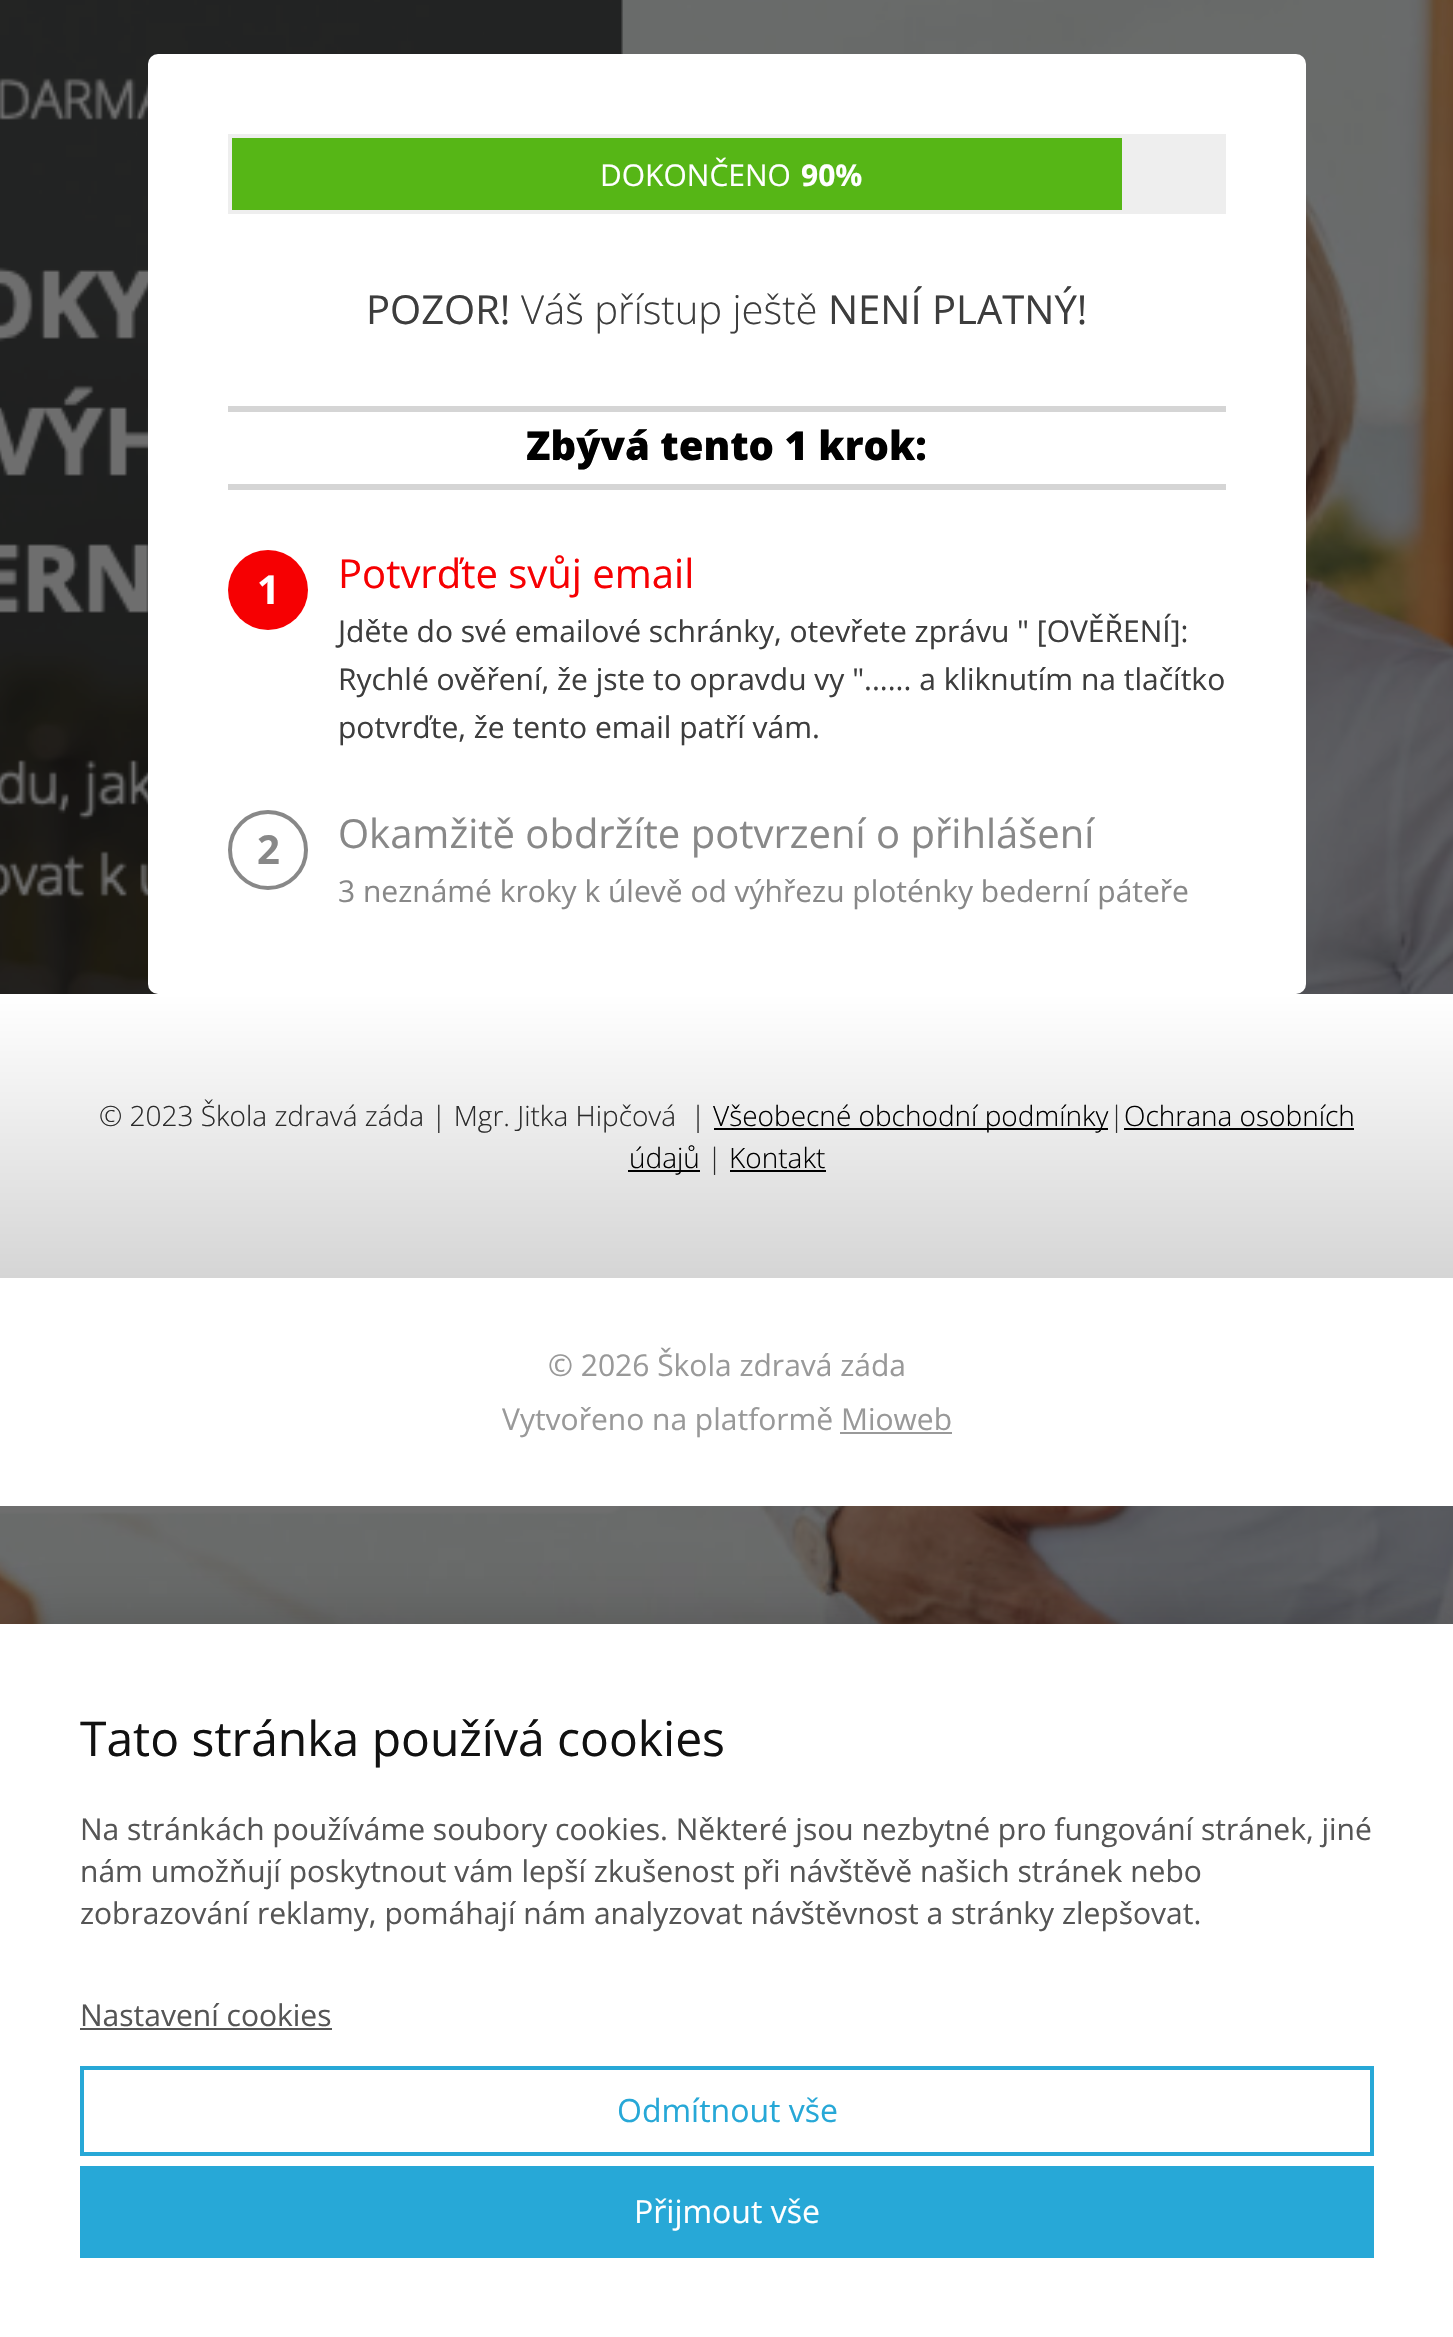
static SkFont makeFont(const char* family, int weight, float size, bool italic = false) {
  SkFontStyle style(weight, SkFontStyle::kNormal_Width,
    italic ? SkFontStyle::kItalic_Slant : SkFontStyle::kUpright_Slant);
  SkFont result(fontMgr->matchFamilyStyle(family, style), size);
  result.setSubpixel(true);
  return result;
}

static void text(SkCanvas* c, const char* s, float x, float y, const SkFont& font, SkColor color) {
  SkPaint ink(SkColor4f::FromColor(color));
  ink.setAntiAlias(true);
  c->drawString(s, x, y, font, ink);
}

static void box(SkCanvas* c, float l, float t, float r, float b, SkColor color) {
  SkPaint ink(SkColor4f::FromColor(color));
  ink.setAntiAlias(true);
  c->drawRect(SkRect::MakeLTRB(l, t, r, b), ink);
}

static void roundBox(SkCanvas* c, float l, float t, float r, float b, float radius, SkColor color) {
  SkPaint ink(SkColor4f::FromColor(color));
  ink.setAntiAlias(true);
  c->drawRoundRect(SkRect::MakeLTRB(l, t, r, b), radius, radius, ink);
}

static void picture(SkCanvas* c, const char* path, float l, float t, float r, float b) {
  auto image = SkImages::DeferredFromEncodedData(SkData::MakeFromFileName(path));
  c->drawImageRect(image, SkRect::MakeLTRB(l, t, r, b), SkSamplingOptions());
}

void draw(SkCanvas* c) {
  SkPaint paint;
  paint.setAntiAlias(true);
  c->clear(0xffffffff);
  picture(c, "img_01.png", 0, 0, 1453, 1624);
  roundBox(c, 148, 54, 1306, 994, 10, 0xffffffff);
  box(c, 228, 134, 1226, 214, 0xffeeeeee);
  box(c, 232, 138, 1122, 210, 0xff56b616);
  SkFont face1 = makeFont("Open Sans", 400, 30);
  text(c, "DOKONČENO", 600, 186, face1, 0xffffffff);
  SkFont face2 = makeFont("Open Sans", 700, 30);
  text(c, "90%", 801, 186, face2, 0xffffffff);
  SkFont face3 = makeFont("Open Sans", 400, 40);
  text(c, "POZOR!", 366, 324, face3, 0xff3d3d3d);
  SkFont face4 = makeFont("Open Sans", 300, 40);
  text(c, "Váš přístup ještě", 521, 324, face4, 0xff3d3d3d);
  text(c, "NENÍ PLATNÝ!", 828, 324, face3, 0xff3d3d3d);
  box(c, 228, 406, 1226, 412, 0xffd5d5d5);
  box(c, 228, 484, 1226, 490, 0xffd5d5d5);
  SkFont face5 = makeFont("Open Sans", 800, 40);
  text(c, "Zbývá tento 1 krok:", 526, 460, face5, 0xff000000);
  paint.setColor(0xfff60002);
  c->drawCircle(268, 590, 40, paint);
  SkFont face6 = makeFont("Open Sans", 700, 40);
  text(c, "1", 257, 604, face6, 0xffffffff);
  text(c, "Potvrďte svůj email", 338, 588, face3, 0xfff60002);
  text(c, "Jděte do své emailové schránky, otevřete zprávu \" [OVĚŘENÍ]:", 338, 642, face1, 0xff3d3d3d);
  text(c, "Rychlé ověření, že jste to opravdu vy \"...... a kliknutím na tlačítko", 338, 690, face1, 0xff3d3d3d);
  text(c, "potvrďte, že tento email patří vám.", 338, 738, face1, 0xff3d3d3d);
  paint.setStyle(SkPaint::kStroke_Style);
  paint.setStrokeWidth(4);
  paint.setColor(0xff888888);
  c->drawCircle(268, 850, 38, paint);
  text(c, "2", 257, 864, face6, 0xff888888);
  text(c, "Okamžitě obdržíte potvrzení o přihlášení", 338, 848, face3, 0xff888888);
  text(c, "3 neznámé kroky k úlevě od výhřezu ploténky bederní páteře", 338, 902, face1, 0xff888888);
  paint.setStyle(SkPaint::kFill_Style);
  {
    const SkColor colors[] = {0xffffffff, 0xffd5d5d5};
    const float stops[] = {0, 1};
    const SkPoint ends[] = {{727, 994}, {727, 1278}};
    paint.setShader(SkGradientShader::MakeLinear(ends, colors, stops, 2, SkTileMode::kClamp));
    paint.setAlpha(255);
  }
  c->drawRect(SkRect::MakeLTRB(0, 994, 1453, 1278), paint);
  SkFont face7 = makeFont("Open Sans", 300, 28);
  text(c, "© 2023 Škola zdravá záda | Mgr. Jitka Hipčová  |", 99, 1126, face7, 0xff2b2b2b);
  box(c, 714, 1128, 1108, 1130, 0xff000000);
  text(c, "Všeobecné obchodní podmínky", 713, 1126, face7, 0xff000000);
  text(c, "|", 1109, 1126, face7, 0xff2b2b2b);
  text(c, "Ochrana osobních", 1124, 1126, face7, 0xff000000);
  box(c, 1124, 1128, 1354, 1130, 0xff000000);
  box(c, 628, 1170, 700, 1172, 0xff000000);
  text(c, "údajů", 629, 1168, face7, 0xff000000);
  text(c, "|", 707, 1168, face7, 0xff2b2b2b);
  text(c, "Kontakt", 729, 1168, face7, 0xff000000);
  box(c, 730, 1170, 826, 1172, 0xff000000);
  box(c, 0, 1278, 1453, 1506, 0xffffffff);
  text(c, "© 2026 Škola zdravá záda", 548, 1376, face1, 0xff999999);
  text(c, "Vytvořeno na platformě Mioweb", 502, 1430, face1, 0xff999999);
  box(c, 840, 1432, 952, 1434, 0xff999999);
  paint.setShader(nullptr);
  paint.setColor(0x33000000);
  paint.setMaskFilter(SkMaskFilter::MakeBlur(kNormal_SkBlurStyle, 30));
  c->drawRect(SkRect::MakeLTRB(0, 1624, 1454, 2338), paint);
  paint.setMaskFilter(nullptr);
  box(c, 0, 1624, 1453, 2337, 0xffffffff);
  SkFont face8 = makeFont("Open Sans", 400, 48);
  text(c, "Tato stránka používá cookies", 80, 1756, face8, 0xff111111);
  text(c, "Na stránkách používáme soubory cookies. Některé jsou nezbytné pro fungování stránek, jiné", 80, 1840, face1, 0xff555555);
  text(c, "nám umožňují poskytnout vám lepší zkušenost při návštěvě našich stránek nebo", 80, 1882, face1, 0xff555555);
  text(c, "zobrazování reklamy, pomáhají nám analyzovat návštěvnost a stránky zlepšovat.", 80, 1924, face1, 0xff555555);
  text(c, "Nastavení cookies", 80, 2026, face1, 0xff555555);
  box(c, 80, 2028, 332, 2030, 0xff555555);
  paint.setStyle(SkPaint::kStroke_Style);
  paint.setColor(0xff27a8d7);
  c->drawRect(SkRect::MakeLTRB(82, 2068, 1372, 2154), paint);
  SkFont face9 = makeFont("Open Sans", 400, 32);
  text(c, "Odmítnout vše", 617, 2122, face9, 0xff27a8d7);
  box(c, 80, 2166, 1374, 2258, 0xff27a8d7);
  text(c, "Přijmout vše", 634, 2223, face9, 0xffffffff);
}
